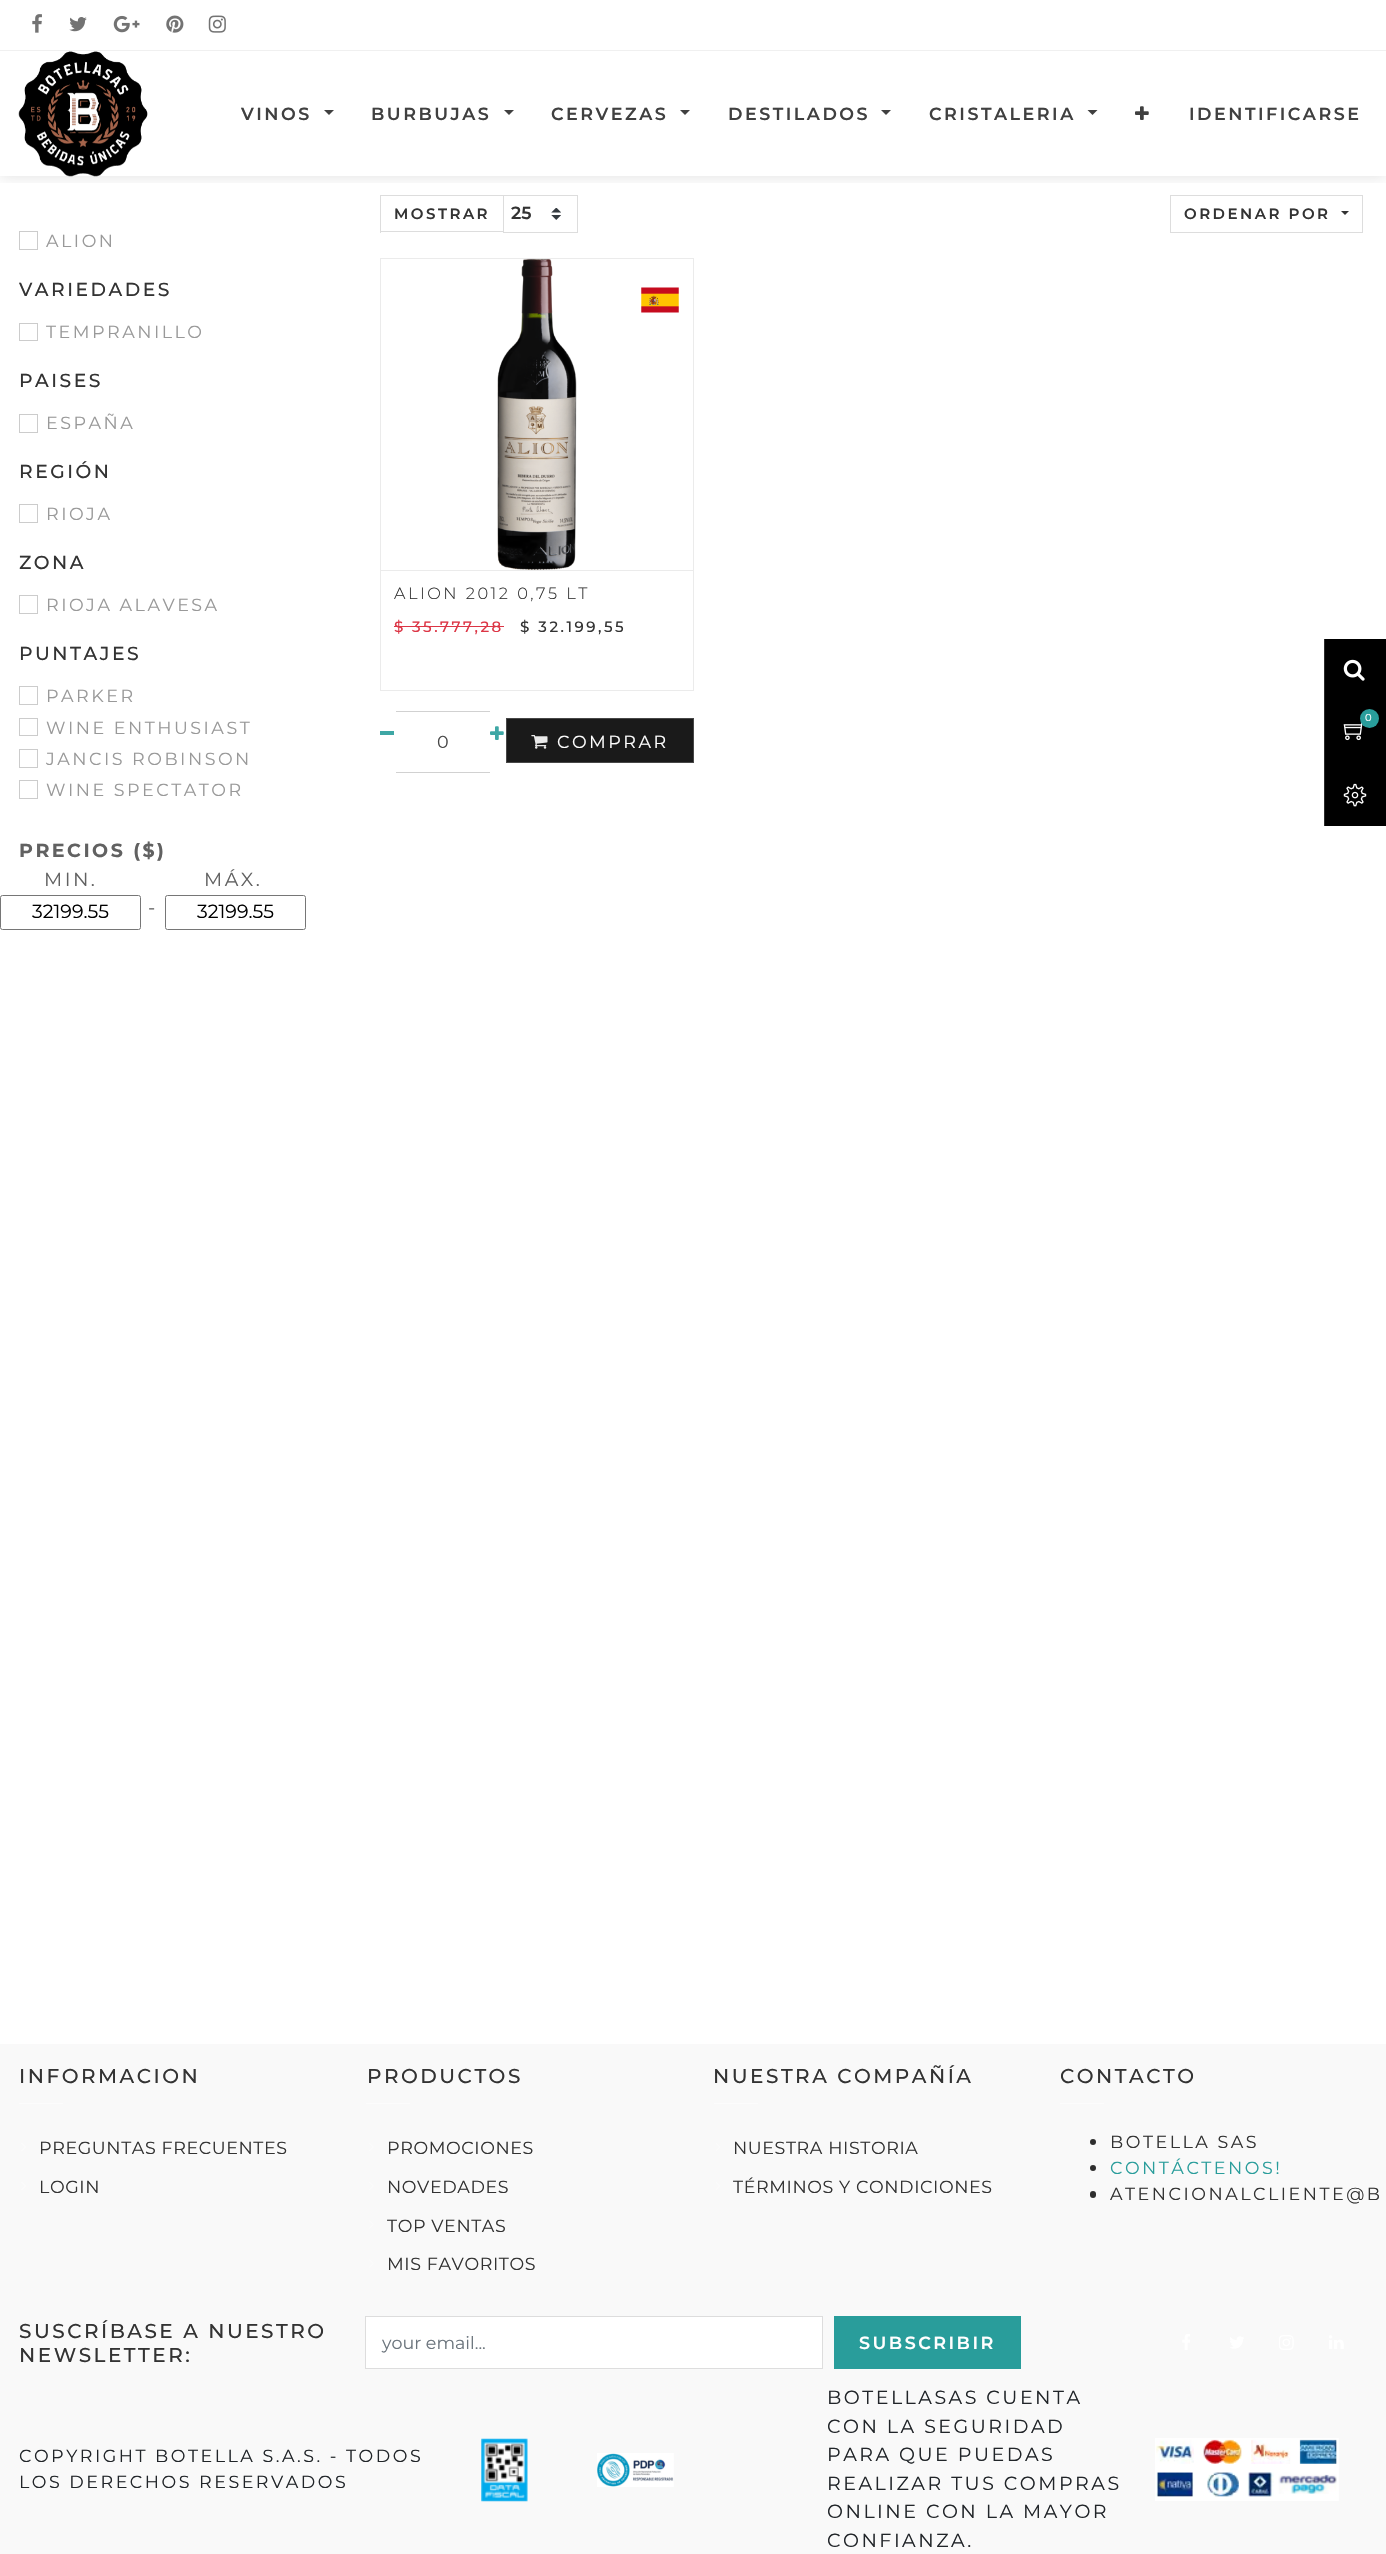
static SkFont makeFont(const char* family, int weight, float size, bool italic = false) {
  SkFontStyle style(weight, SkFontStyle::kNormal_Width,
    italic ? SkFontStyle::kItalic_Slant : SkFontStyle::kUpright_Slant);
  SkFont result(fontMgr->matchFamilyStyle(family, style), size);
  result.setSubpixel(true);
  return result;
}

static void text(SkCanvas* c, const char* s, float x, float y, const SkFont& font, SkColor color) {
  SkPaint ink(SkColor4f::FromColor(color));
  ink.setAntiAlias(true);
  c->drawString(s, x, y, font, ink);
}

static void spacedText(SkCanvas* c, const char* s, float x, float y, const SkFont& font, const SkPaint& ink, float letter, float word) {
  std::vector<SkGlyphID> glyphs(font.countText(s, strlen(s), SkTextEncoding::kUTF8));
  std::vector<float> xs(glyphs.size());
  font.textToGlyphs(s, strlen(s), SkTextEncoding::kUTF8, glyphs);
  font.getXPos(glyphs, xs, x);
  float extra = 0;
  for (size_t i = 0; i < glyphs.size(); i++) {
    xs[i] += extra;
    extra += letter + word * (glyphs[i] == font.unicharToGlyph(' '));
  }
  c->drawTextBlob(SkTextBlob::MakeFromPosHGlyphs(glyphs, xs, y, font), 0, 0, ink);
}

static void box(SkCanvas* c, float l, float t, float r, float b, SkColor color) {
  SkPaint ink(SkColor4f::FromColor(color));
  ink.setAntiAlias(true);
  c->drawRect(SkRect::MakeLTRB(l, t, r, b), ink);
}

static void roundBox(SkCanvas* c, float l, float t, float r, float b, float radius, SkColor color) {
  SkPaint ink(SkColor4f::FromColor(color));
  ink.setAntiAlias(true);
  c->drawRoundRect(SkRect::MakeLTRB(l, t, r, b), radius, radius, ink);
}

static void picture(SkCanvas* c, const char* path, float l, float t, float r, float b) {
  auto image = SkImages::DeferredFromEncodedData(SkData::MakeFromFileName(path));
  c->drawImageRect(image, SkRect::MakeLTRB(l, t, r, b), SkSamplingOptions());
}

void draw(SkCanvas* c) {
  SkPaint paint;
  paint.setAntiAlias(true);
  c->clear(0xffffffff);
  box(c, 380, 195, 503, 196, 0xffdddddd);
  box(c, 380, 231, 503, 232, 0xffdddddd);
  box(c, 380, 195, 381, 233, 0xffdddddd);
  picture(c, "img_11.png", 551, 208, 561, 220);
  paint.setStyle(SkPaint::kStroke_Style);
  paint.setStrokeWidth(1);
  paint.setColor(0xffdddddd);
  c->drawRect(SkRect::MakeLTRB(503.5f, 195.5f, 577.5f, 232.5f), paint);
  c->drawRect(SkRect::MakeLTRB(1170.5f, 195.5f, 1362.5f, 232.5f), paint);
  c->save();
  c->clipRect(SkRect::MakeLTRB(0, 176, 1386, 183));
  paint.setStyle(SkPaint::kFill_Style);
  paint.setColor(0x1f000000);
  paint.setMaskFilter(SkMaskFilter::MakeBlur(kNormal_SkBlurStyle, 7.5f));
  c->drawRect(SkRect::MakeLTRB(0, 0, 1386, 176), paint);
  paint.setMaskFilter(nullptr);
  c->restore();
  box(c, 0, 50, 1386, 51, 0xfff0f0f0);
  picture(c, "img_01.png", 32, 14, 42, 33);
  picture(c, "img_02.png", 69, 17, 87, 32);
  picture(c, "img_03.png", 113, 15, 140, 33);
  picture(c, "img_04.png", 166, 15, 184, 33);
  picture(c, "img_05.png", 208, 15, 226, 33);
  picture(c, "img_06.png", 18, 51, 148, 177);
  SkFont face1 = makeFont("Montserrat", 600, 17.5f);
  paint.setColor(0xff404040);
  spacedText(c, "VINOS", 241, 120, face1, paint, 2.5f, 0);
  c->drawPath(SkPathBuilder().moveTo(324, 110).lineTo(334, 110).lineTo(329, 115).close().detach(), paint);
  spacedText(c, "BURBUJAS", 371, 120, face1, paint, 2.5f, 0);
  c->drawPath(SkPathBuilder().moveTo(504, 110).lineTo(514, 110).lineTo(509, 115).close().detach(), paint);
  spacedText(c, "CERVEZAS", 551, 120, face1, paint, 2.5f, 0);
  c->drawPath(SkPathBuilder().moveTo(680, 110).lineTo(690, 110).lineTo(685, 115).close().detach(), paint);
  spacedText(c, "DESTILADOS", 728, 120, face1, paint, 2.5f, 0);
  c->drawPath(SkPathBuilder().moveTo(881, 110).lineTo(891, 110).lineTo(886, 115).close().detach(), paint);
  spacedText(c, "CRISTALERIA", 929, 120, face1, paint, 2.5f, 0);
  c->drawPath(SkPathBuilder().moveTo(1087.5f, 110).lineTo(1097.5f, 110).lineTo(1092.5f, 115).close().detach(), paint);
  picture(c, "img_07.png", 1135, 106, 1149, 120);
  spacedText(c, "IDENTIFICARSE", 1189, 120, face1, paint, 2.5f, 0);
  box(c, 1324, 639, 1325, 826, 0xff2b2b2b);
  box(c, 1325, 639, 1386, 826, 0xff000000);
  picture(c, "img_08.png", 1343, 659, 1365, 681);
  picture(c, "img_09.png", 1343, 722, 1363, 741);
  paint.setColor(0xff299d9b);
  c->drawCircle(1369.5f, 718.5f, 9.5f, paint);
  SkFont face2 = makeFont("Montserrat", 400, 10);
  paint.setColor(0xffffffff);
  spacedText(c, "0", 1365, 721, face2, paint, 2.5f, 0);
  picture(c, "img_10.png", 1343, 783, 1367, 807);
  paint.setStyle(SkPaint::kStroke_Style);
  paint.setColor(0xffcccccc);
  c->drawRect(SkRect::MakeLTRB(19.5f, 231.5f, 37.5f, 249.5f), paint);
  SkFont face3 = makeFont("Montserrat", 400, 17.5f);
  paint.setStyle(SkPaint::kFill_Style);
  paint.setColor(0xff999999);
  spacedText(c, "ALION", 46, 247, face3, paint, 2.5f, 0);
  SkFont face4 = makeFont("Montserrat", 500, 18.75f);
  paint.setColor(0xff333333);
  spacedText(c, "VARIEDADES", 19, 296, face4, paint, 2.5f, 0);
  paint.setStyle(SkPaint::kStroke_Style);
  paint.setColor(0xffcccccc);
  c->drawRect(SkRect::MakeLTRB(19.5f, 323.5f, 37.5f, 340.5f), paint);
  paint.setStyle(SkPaint::kFill_Style);
  paint.setColor(0xff999999);
  spacedText(c, "TEMPRANILLO", 46, 338, face3, paint, 2.5f, 0);
  paint.setColor(0xff333333);
  spacedText(c, "PAISES", 19, 387, face4, paint, 2.5f, 0);
  paint.setStyle(SkPaint::kStroke_Style);
  paint.setColor(0xffcccccc);
  c->drawRect(SkRect::MakeLTRB(19.5f, 414.5f, 37.5f, 432.5f), paint);
  paint.setStyle(SkPaint::kFill_Style);
  paint.setColor(0xff999999);
  spacedText(c, "ESPAÑA", 46, 429, face3, paint, 2.5f, 0);
  paint.setColor(0xff333333);
  spacedText(c, "REGIÓN", 19, 478, face4, paint, 2.5f, 0);
  paint.setStyle(SkPaint::kStroke_Style);
  paint.setColor(0xffcccccc);
  c->drawRect(SkRect::MakeLTRB(19.5f, 504.5f, 37.5f, 522.5f), paint);
  paint.setStyle(SkPaint::kFill_Style);
  paint.setColor(0xff999999);
  spacedText(c, "RIOJA", 46, 520, face3, paint, 2.5f, 0);
  paint.setColor(0xff333333);
  spacedText(c, "ZONA", 19, 569, face4, paint, 2.5f, 0);
  paint.setStyle(SkPaint::kStroke_Style);
  paint.setColor(0xffcccccc);
  c->drawRect(SkRect::MakeLTRB(19.5f, 595.5f, 37.5f, 613.5f), paint);
  paint.setStyle(SkPaint::kFill_Style);
  paint.setColor(0xff999999);
  spacedText(c, "RIOJA ALAVESA", 46, 611, face3, paint, 2.5f, 0);
  paint.setColor(0xff333333);
  spacedText(c, "PUNTAJES", 19, 660, face4, paint, 2.5f, 0);
  paint.setStyle(SkPaint::kStroke_Style);
  paint.setColor(0xffcccccc);
  c->drawRect(SkRect::MakeLTRB(19.5f, 686.5f, 37.5f, 704.5f), paint);
  paint.setStyle(SkPaint::kFill_Style);
  paint.setColor(0xff999999);
  spacedText(c, "PARKER", 46, 702, face3, paint, 2.5f, 0);
  paint.setStyle(SkPaint::kStroke_Style);
  paint.setColor(0xffcccccc);
  c->drawRect(SkRect::MakeLTRB(19.5f, 718.5f, 37.5f, 735.5f), paint);
  paint.setStyle(SkPaint::kFill_Style);
  paint.setColor(0xff999999);
  spacedText(c, "WINE ENTHUSIAST", 46, 734, face3, paint, 2.5f, 0);
  paint.setStyle(SkPaint::kStroke_Style);
  paint.setColor(0xffcccccc);
  c->drawRect(SkRect::MakeLTRB(19.5f, 749.5f, 37.5f, 767.5f), paint);
  paint.setStyle(SkPaint::kFill_Style);
  paint.setColor(0xff999999);
  spacedText(c, "JANCIS ROBINSON", 46, 765, face3, paint, 2.5f, 0);
  paint.setStyle(SkPaint::kStroke_Style);
  paint.setColor(0xffcccccc);
  c->drawRect(SkRect::MakeLTRB(19.5f, 780.5f, 37.5f, 798.5f), paint);
  paint.setStyle(SkPaint::kFill_Style);
  paint.setColor(0xff999999);
  spacedText(c, "WINE SPECTATOR", 46, 796, face3, paint, 2.5f, 0);
  SkFont face5 = makeFont("Montserrat", 700, 19);
  paint.setColor(0xff616161);
  spacedText(c, "PRECIOS ($)", 19, 857, face5, paint, 2.5f, 0);
  SkFont face6 = makeFont("Montserrat", 400, 19);
  spacedText(c, "MIN.", 44, 886, face6, paint, 2.5f, 0);
  spacedText(c, "MÁX.", 204, 886, face6, paint, 2.5f, 0);
  paint.setStyle(SkPaint::kStroke_Style);
  paint.setColor(0xff767676);
  c->drawRoundRect(SkRect::MakeLTRB(0.5f, 895.5f, 140.5f, 929.5f), 2, 2, paint);
  text(c, "32199.55", 32, 918, face6, 0xff000000);
  paint.setStyle(SkPaint::kFill_Style);
  paint.setColor(0xff616161);
  spacedText(c, "-", 148, 914, face6, paint, 2.5f, 0);
  paint.setStyle(SkPaint::kStroke_Style);
  paint.setColor(0xff767676);
  c->drawRoundRect(SkRect::MakeLTRB(165.5f, 895.5f, 305.5f, 929.5f), 2, 2, paint);
  text(c, "32199.55", 197, 918, face6, 0xff000000);
  SkFont face7 = makeFont("Montserrat", 600, 15);
  paint.setStyle(SkPaint::kFill_Style);
  paint.setColor(0xff333333);
  spacedText(c, "MOSTRAR", 394, 219, face7, paint, 2.5f, 0);
  text(c, "25", 511, 219, face1, 0xff333333);
  spacedText(c, "ORDENAR POR", 1184, 219, face7, paint, 2.5f, 0);
  paint.setColor(0xff323232);
  c->drawPath(SkPathBuilder().moveTo(1341, 211).lineTo(1349, 211).lineTo(1345, 215).close().detach(), paint);
  paint.setStyle(SkPaint::kStroke_Style);
  paint.setColor(0xffebebeb);
  c->drawRect(SkRect::MakeLTRB(380.5f, 258.5f, 693.5f, 690.5f), paint);
  picture(c, "img_12.png", 497, 258, 577, 570);
  picture(c, "img_13.png", 641, 287, 679, 313);
  box(c, 381, 570, 693, 571, 0xffebebeb);
  SkFont face8 = makeFont("Montserrat", 300, 16.25f);
  paint.setStyle(SkPaint::kFill_Style);
  paint.setColor(0xff333333);
  spacedText(c, "ALION 2012 0,75 LT", 394, 599, face8, paint, 2.5f, 0);
  SkFont face9 = makeFont("Montserrat", 500, 15);
  paint.setColor(0xffdc3545);
  spacedText(c, "$", 394, 632, face9, paint, 2.5f, 0);
  box(c, 394, 626, 413, 627, 0xffdc3545);
  spacedText(c, "35.777,28", 412, 632, face9, paint, 2.5f, 0);
  box(c, 413, 626, 504, 627, 0xffdc3545);
  paint.setColor(0xff333333);
  spacedText(c, "$ 32.199,55", 520, 632, face9, paint, 2.5f, 0);
  paint.setStyle(SkPaint::kStroke_Style);
  paint.setColor(0xffd1d1d1);
  c->drawRect(SkRect::MakeLTRB(395.5f, 711.5f, 490.5f, 772.5f), paint);
  box(c, 395, 711, 396, 773, 0xffffffff);
  box(c, 380, 731, 394, 735, 0xff3ea7a5);
  text(c, "0", 437, 748, face3, 0xff474747);
  box(c, 490, 711, 491, 773, 0xffffffff);
  picture(c, "img_14.png", 490, 726, 504, 740);
  paint.setStyle(SkPaint::kFill_Style);
  paint.setColor(0xff1a1a1a);
  c->drawRect(SkRect::MakeLTRB(506.5f, 718.5f, 693.5f, 762.5f), paint);
  paint.setStyle(SkPaint::kStroke_Style);
  paint.setColor(0xff474747);
  c->drawRect(SkRect::MakeLTRB(506.5f, 718.5f, 693.5f, 762.5f), paint);
  picture(c, "img_15.png", 531, 735, 548, 749);
  paint.setStyle(SkPaint::kFill_Style);
  paint.setColor(0xffffffff);
  spacedText(c, "COMPRAR", 557, 748, face3, paint, 2.5f, 0);
  box(c, 0, 2044, 1386, 2554, 0xfff9f9f9);
  SkFont face10 = makeFont("Montserrat", 500, 20);
  paint.setColor(0xff333333);
  spacedText(c, "INFORMACION", 19, 2083, face10, paint, 2.5f, 0);
  box(c, 19, 2103, 63, 2104, 0xfffcfcfc);
  paint.setColor(0xfffcfcfc);
  c->drawPath(SkPathBuilder().moveTo(22, 2142.5f).lineTo(26.5f, 2147).lineTo(24.5f, 2147).lineTo(21, 2143.5f).close().moveTo(26.5f, 2147).lineTo(22, 2151.5f).lineTo(21, 2150.5f).lineTo(24.5f, 2147).close().detach(), paint);
  paint.setColor(0xff333333);
  spacedText(c, "PREGUNTAS FRECUENTES", 39, 2154, face3, paint, 0.6f, 0);
  paint.setColor(0xfffcfcfc);
  c->drawPath(SkPathBuilder().moveTo(22, 2181.5f).lineTo(26.5f, 2186).lineTo(24.5f, 2186).lineTo(21, 2182.5f).close().moveTo(26.5f, 2186).lineTo(22, 2190.5f).lineTo(21, 2189.5f).lineTo(24.5f, 2186).close().detach(), paint);
  paint.setColor(0xff333333);
  spacedText(c, "LOGIN", 39, 2193, face3, paint, 0.6f, 0);
  spacedText(c, "PRODUCTOS", 367, 2083, face10, paint, 2.5f, 0);
  box(c, 366, 2103, 410, 2104, 0xfffcfcfc);
  paint.setColor(0xfffcfcfc);
  c->drawPath(SkPathBuilder().moveTo(369.5f, 2142.5f).lineTo(374, 2147).lineTo(372.5f, 2147).lineTo(369, 2143.5f).close().moveTo(374, 2147).lineTo(369.5f, 2151.5f).lineTo(369, 2150.5f).lineTo(372.5f, 2147).close().detach(), paint);
  paint.setColor(0xff333333);
  spacedText(c, "PROMOCIONES", 387, 2154, face3, paint, 0.6f, 0);
  paint.setColor(0xfffcfcfc);
  c->drawPath(SkPathBuilder().moveTo(369.5f, 2181.5f).lineTo(374, 2186).lineTo(372.5f, 2186).lineTo(369, 2182.5f).close().moveTo(374, 2186).lineTo(369.5f, 2190.5f).lineTo(369, 2189.5f).lineTo(372.5f, 2186).close().detach(), paint);
  paint.setColor(0xff333333);
  spacedText(c, "NOVEDADES", 387, 2193, face3, paint, 0.6f, 0);
  paint.setColor(0xfffcfcfc);
  c->drawPath(SkPathBuilder().moveTo(369.5f, 2220).lineTo(374, 2224.5f).lineTo(372.5f, 2224.5f).lineTo(369, 2221).close().detach(), paint);
  c->drawPath(SkPathBuilder().moveTo(374, 2224.5f).lineTo(369.5f, 2229).lineTo(369, 2228).lineTo(372.5f, 2224.5f).close().detach(), paint);
  paint.setColor(0xff333333);
  spacedText(c, "TOP VENTAS", 387, 2232, face3, paint, 0.6f, 0);
  paint.setColor(0xfffcfcfc);
  c->drawPath(SkPathBuilder().moveTo(369.5f, 2259).lineTo(374, 2263.5f).lineTo(372.5f, 2263.5f).lineTo(369, 2260).close().detach(), paint);
  c->drawPath(SkPathBuilder().moveTo(374, 2263.5f).lineTo(369.5f, 2268).lineTo(369, 2267).lineTo(372.5f, 2263.5f).close().detach(), paint);
  paint.setColor(0xff333333);
  spacedText(c, "MIS FAVORITOS", 387, 2270, face3, paint, 0.6f, 0);
  spacedText(c, "NUESTRA COMPAÑÍA", 713, 2083, face10, paint, 2.5f, 0);
  box(c, 714, 2103, 758, 2104, 0xfffcfcfc);
  paint.setColor(0xfffcfcfc);
  c->drawPath(SkPathBuilder().moveTo(716, 2142.5f).lineTo(720.5f, 2147).lineTo(719, 2147).lineTo(715.5f, 2143.5f).close().moveTo(720.5f, 2147).lineTo(716, 2151.5f).lineTo(715.5f, 2150.5f).lineTo(719, 2147).close().detach(), paint);
  paint.setColor(0xff333333);
  spacedText(c, "NUESTRA HISTORIA", 733, 2154, face3, paint, 0.6f, 0);
  paint.setColor(0xfffcfcfc);
  c->drawPath(SkPathBuilder().moveTo(716, 2181.5f).lineTo(720.5f, 2186).lineTo(719, 2186).lineTo(715.5f, 2182.5f).close().moveTo(720.5f, 2186).lineTo(716, 2190.5f).lineTo(715.5f, 2189.5f).lineTo(719, 2186).close().detach(), paint);
  paint.setColor(0xff333333);
  spacedText(c, "TÉRMINOS Y CONDICIONES", 733, 2193, face3, paint, 0.6f, 0);
  spacedText(c, "CONTACTO", 1060, 2083, face10, paint, 2.5f, 0);
  box(c, 1060, 2103, 1104, 2104, 0xfffcfcfc);
  paint.setColor(0xff2e2e2e);
  c->drawCircle(1093, 2142, 3, paint);
  paint.setColor(0xff333333);
  spacedText(c, "BOTELLA SAS", 1110, 2148, face3, paint, 2.5f, 0);
  paint.setColor(0xff2e2e2e);
  c->drawCircle(1093, 2168, 3, paint);
  paint.setColor(0xff299d9b);
  spacedText(c, "CONTÁCTENOS!", 1110, 2174, face3, paint, 2.5f, 0);
  roundBox(c, 1090, 2191, 1096, 2198, 3, 0xff2e2e2e);
  paint.setColor(0xff333333);
  spacedText(c, "ATENCIONALCLIENTE@B", 1110, 2200, face3, paint, 2.5f, 0);
  spacedText(c, "SUSCRÍBASE A NUESTRO", 19, 2338, face10, paint, 2.5f, 0);
  spacedText(c, "NEWSLETTER:", 19, 2362, face10, paint, 2.5f, 0);
  paint.setColor(0xffffffff);
  c->drawRect(SkRect::MakeLTRB(365.5f, 2316.5f, 822.5f, 2368.5f), paint);
  paint.setStyle(SkPaint::kStroke_Style);
  paint.setColor(0xffdddddd);
  c->drawRect(SkRect::MakeLTRB(365.5f, 2316.5f, 822.5f, 2368.5f), paint);
  text(c, "your email...", 382, 2349, face3, 0xff6c757d);
  box(c, 834, 2316, 1021, 2369, 0xff299d9b);
  paint.setStyle(SkPaint::kFill_Style);
  paint.setColor(0xffffffff);
  spacedText(c, "SUBSCRIBIR", 859, 2349, face1, paint, 2.5f, 0);
  picture(c, "img_16.png", 1182, 2334, 1190, 2350);
  picture(c, "img_17.png", 1230, 2336, 1244, 2349);
  picture(c, "img_18.png", 1279, 2335, 1294, 2350);
  picture(c, "img_19.png", 1329, 2335, 1344, 2349);
  paint.setColor(0xff212529);
  spacedText(c, "COPYRIGHT BOTELLA S.A.S. - TODOS", 19, 2462, face3, paint, 2.5f, 0);
  spacedText(c, "LOS DERECHOS RESERVADOS", 19, 2488, face3, paint, 2.5f, 0);
  picture(c, "img_20.png", 481, 2438, 528, 2502);
  picture(c, "img_21.png", 597, 2453, 674, 2487);
  spacedText(c, "BOTELLASAS CUENTA", 827, 2404, face6, paint, 2.5f, 0);
  spacedText(c, "CON LA SEGURIDAD", 827, 2433, face6, paint, 2.5f, 0);
  spacedText(c, "PARA QUE PUEDAS", 827, 2461, face6, paint, 2.5f, 0);
  spacedText(c, "REALIZAR TUS COMPRAS", 827, 2490, face6, paint, 2.5f, 0);
  spacedText(c, "ONLINE CON LA MAYOR", 827, 2518, face6, paint, 2.5f, 0);
  spacedText(c, "CONFIANZA.", 827, 2547, face6, paint, 2.5f, 0);
  picture(c, "img_22.png", 1155, 2438, 1339, 2501);
}
